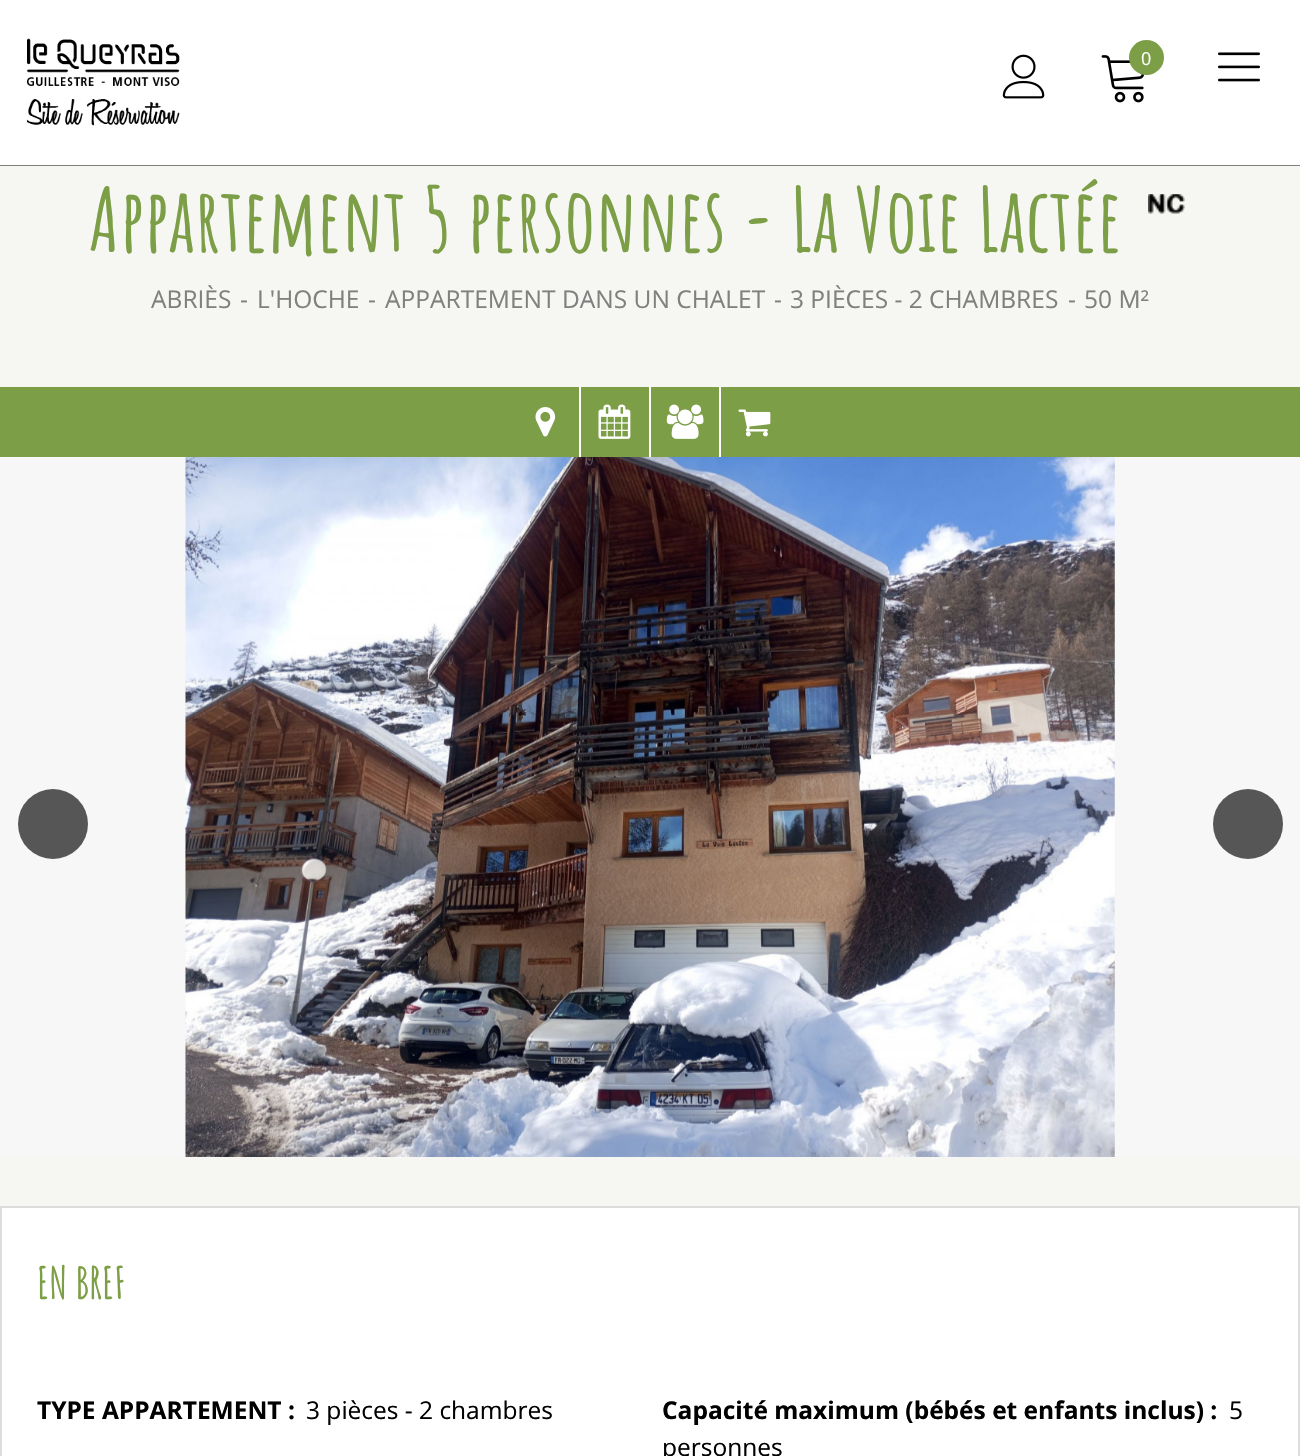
static SkFont makeFont(const char* family, int weight, float size, bool italic = false) {
  SkFontStyle style(weight, SkFontStyle::kNormal_Width,
    italic ? SkFontStyle::kItalic_Slant : SkFontStyle::kUpright_Slant);
  SkFont result(fontMgr->matchFamilyStyle(family, style), size);
  result.setSubpixel(true);
  return result;
}

static void text(SkCanvas* c, const char* s, float x, float y, const SkFont& font, SkColor color) {
  SkPaint ink(SkColor4f::FromColor(color));
  ink.setAntiAlias(true);
  c->drawString(s, x, y, font, ink);
}

static void box(SkCanvas* c, float l, float t, float r, float b, SkColor color) {
  SkPaint ink(SkColor4f::FromColor(color));
  ink.setAntiAlias(true);
  c->drawRect(SkRect::MakeLTRB(l, t, r, b), ink);
}

static void picture(SkCanvas* c, const char* path, float l, float t, float r, float b) {
  auto image = SkImages::DeferredFromEncodedData(SkData::MakeFromFileName(path));
  c->drawImageRect(image, SkRect::MakeLTRB(l, t, r, b), SkSamplingOptions());
}

void draw(SkCanvas* c) {
  SkPaint paint;
  paint.setAntiAlias(true);
  c->clear(0xffffffff);
  box(c, 0, 165, 1300, 166, 0xff808080);
  picture(c, "img_01.png", 26, 38, 180, 126);
  picture(c, "img_02.png", 1002, 54, 1045, 99);
  picture(c, "img_03.png", 1101, 55, 1145, 103);
  paint.setColor(0xff7c9e46);
  c->drawCircle(1146.5f, 57.5f, 17.5f, paint);
  SkFont face1 = makeFont("Open Sans", 400, 18);
  text(c, "0", 1141, 65, face1, 0xffffffff);
  picture(c, "img_04.png", 1218, 52, 1260, 82);
  box(c, 0, 166, 1300, 1206, 0xfff6f6f2);
  SkFont face2 = makeFont("Amatic SC", 700, 87.5f);
  text(c, "Appartement 5 personnes - La Voie Lactée", 89, 252, face2, 0xff7c9e46);
  picture(c, "img_05.png", 1148, 194, 1185, 214);
  SkFont face3 = makeFont("Open Sans", 400, 24.5f);
  text(c, "ABRIÈS", 151, 308, face3, 0xff808080);
  text(c, "-", 240, 308, face3, 0xff808080);
  text(c, "L'HOCHE", 257, 308, face3, 0xff808080);
  text(c, "-", 368, 308, face3, 0xff808080);
  text(c, "APPARTEMENT DANS UN CHALET", 385, 308, face3, 0xff808080);
  text(c, "-", 774, 308, face3, 0xff808080);
  text(c, "3 PIÈCES - 2 CHAMBRES", 790, 308, face3, 0xff808080);
  text(c, "-", 1068, 308, face3, 0xff808080);
  text(c, "50 M²", 1084, 308, face3, 0xff808080);
  box(c, 0, 387, 1300, 457, 0xff7c9e46);
  box(c, 579, 387, 581, 457, 0xffffffff);
  picture(c, "img_06.png", 535, 407, 556, 437);
  box(c, 649, 387, 651, 457, 0xffffffff);
  picture(c, "img_07.png", 598, 404, 631, 439);
  box(c, 719, 387, 721, 457, 0xffffffff);
  picture(c, "img_08.png", 666, 404, 704, 439);
  picture(c, "img_09.png", 738, 409, 771, 437);
  box(c, 0, 457, 1300, 1157, 0xfff7f7f7);
  picture(c, "img_10.png", 185, 457, 1115, 1157);
  paint.setColor(0xff565656);
  c->drawCircle(53, 824, 35, paint);
  c->drawCircle(1248, 824, 35, paint);
  paint.setStyle(SkPaint::kStroke_Style);
  paint.setStrokeWidth(2);
  paint.setColor(0xffdddddd);
  c->drawRect(SkRect::MakeLTRB(1, 1207, 1299, 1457), paint);
  SkFont face4 = makeFont("Amatic SC", 700, 44);
  text(c, "EN BREF", 37, 1299, face4, 0xff7c9e46);
  SkFont face5 = makeFont("Open Sans", 700, 24.5f);
  text(c, "TYPE APPARTEMENT :", 37, 1419, face5, 0xff000000);
  text(c, "3 pièces - 2 chambres", 306, 1419, face3, 0xff000000);
  text(c, "Capacité maximum (bébés et enfants inclus) :", 662, 1419, face5, 0xff000000);
  text(c, "5", 1229, 1419, face3, 0xff000000);
  text(c, "personnes", 662, 1456, face3, 0xff000000);
}
